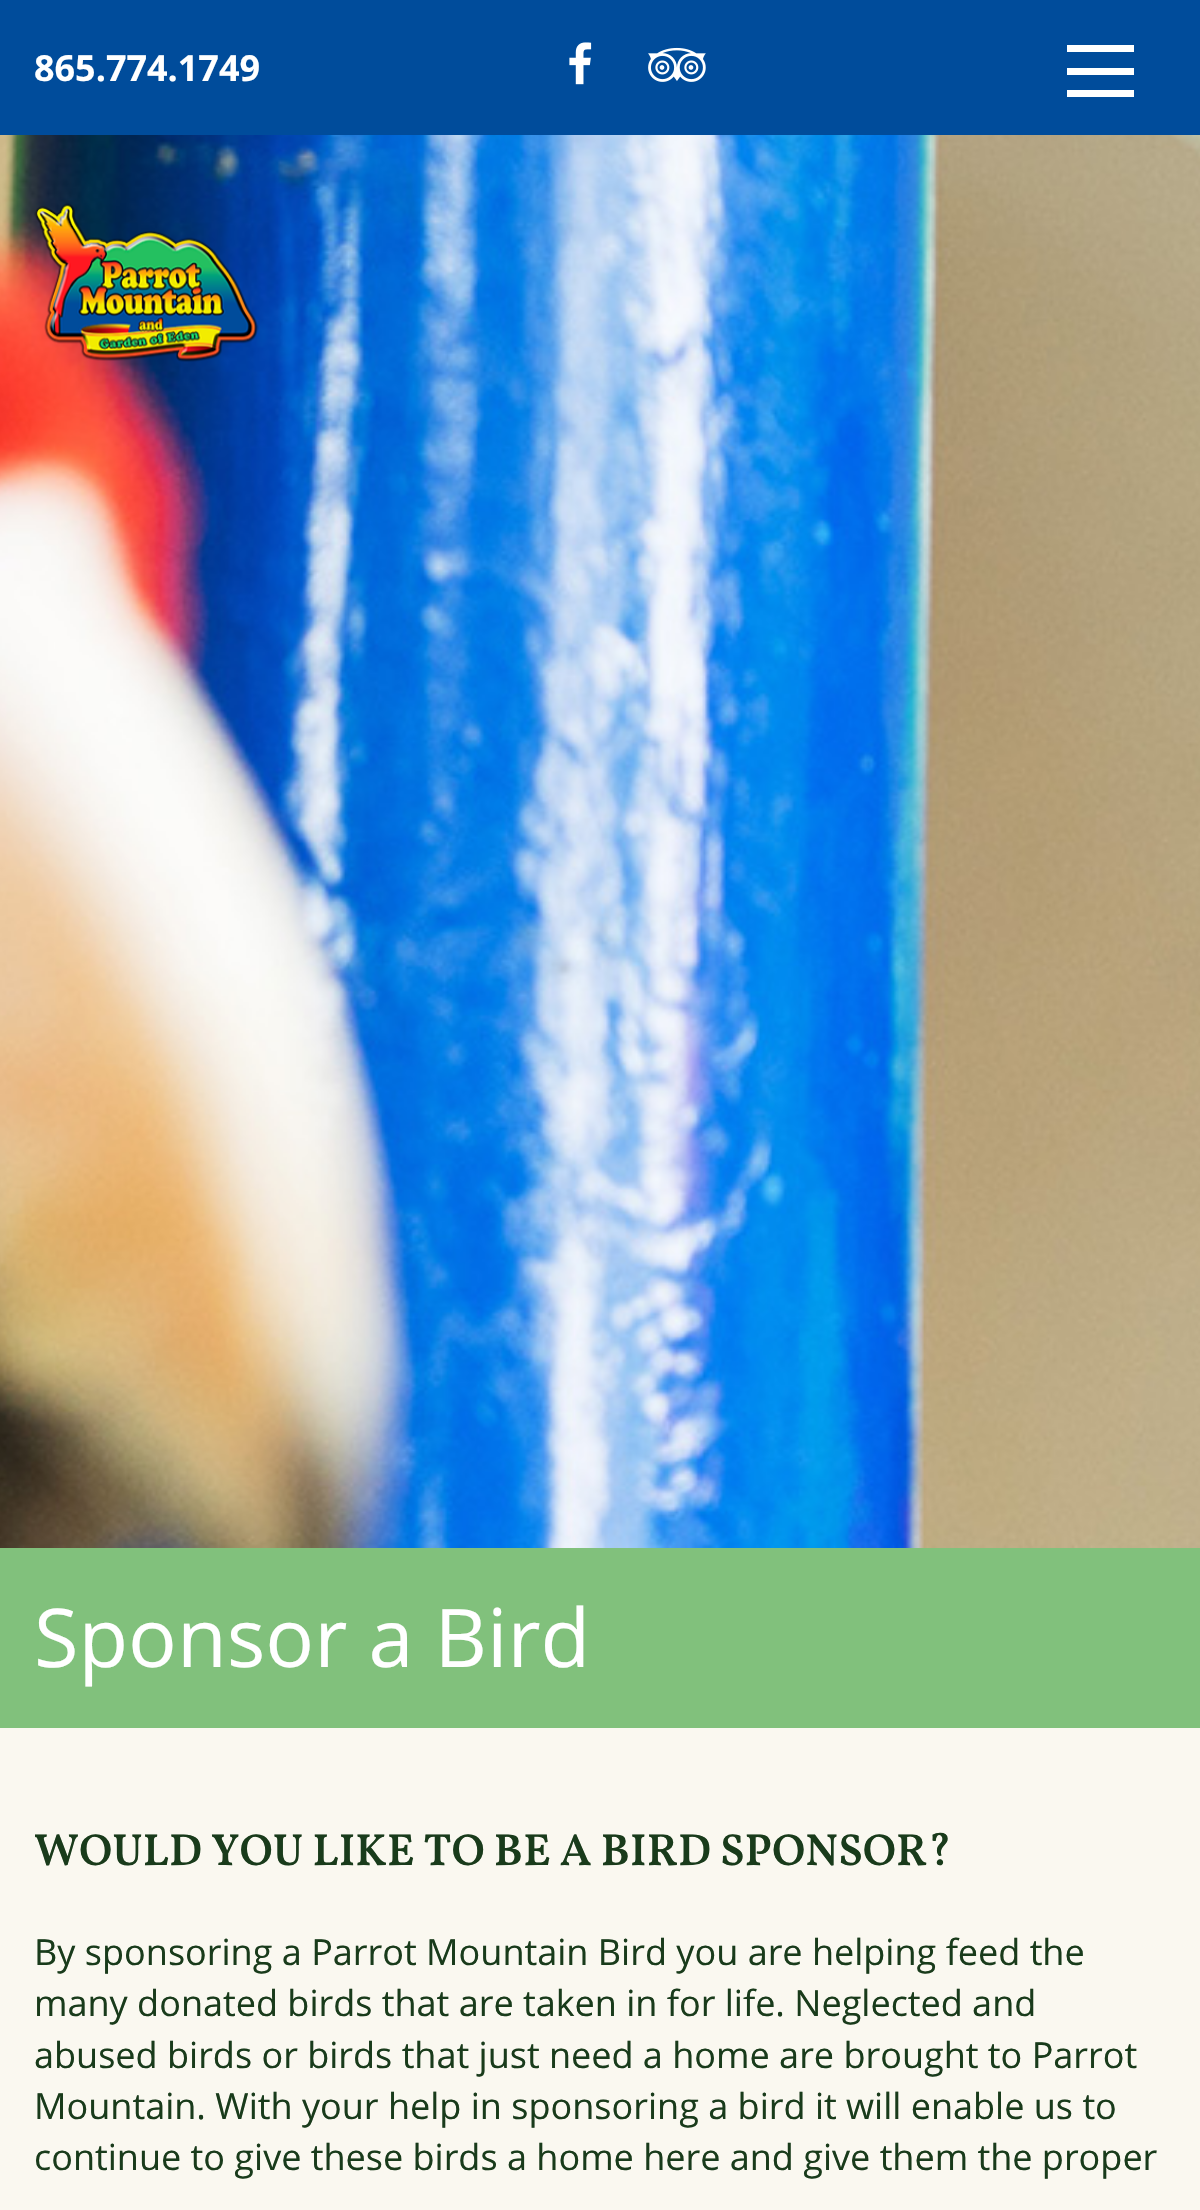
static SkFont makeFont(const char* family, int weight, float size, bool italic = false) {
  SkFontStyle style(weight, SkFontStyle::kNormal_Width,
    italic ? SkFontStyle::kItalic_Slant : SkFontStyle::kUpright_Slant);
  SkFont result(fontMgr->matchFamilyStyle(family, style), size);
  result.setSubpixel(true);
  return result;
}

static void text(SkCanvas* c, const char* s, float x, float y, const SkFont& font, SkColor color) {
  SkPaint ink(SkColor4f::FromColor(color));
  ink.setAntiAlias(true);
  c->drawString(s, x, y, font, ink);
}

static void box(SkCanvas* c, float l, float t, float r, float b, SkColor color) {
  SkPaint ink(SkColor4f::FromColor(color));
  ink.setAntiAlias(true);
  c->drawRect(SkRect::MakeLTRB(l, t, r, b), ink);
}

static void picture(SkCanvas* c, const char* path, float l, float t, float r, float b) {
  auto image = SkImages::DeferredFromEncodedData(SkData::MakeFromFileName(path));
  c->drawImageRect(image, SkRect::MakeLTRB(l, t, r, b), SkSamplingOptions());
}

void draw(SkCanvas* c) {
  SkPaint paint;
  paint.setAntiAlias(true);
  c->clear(0xfffaf8f0);
  box(c, 0, 0, 1200, 135, 0xff004c9b);
  box(c, 1067, 68, 1134, 75, 0xffffffff);
  box(c, 1067, 45, 1134, 52, 0xffffffff);
  box(c, 1067, 90, 1134, 97, 0xffffffff);
  picture(c, "img_04.png", 0, 135, 1200, 1548);
  picture(c, "img_01.png", 34, 203, 259, 362);
  SkFont face1 = makeFont("Open Sans", 700, 36);
  text(c, "865.774.1749", 34, 81, face1, 0xffffffff);
  picture(c, "img_02.png", 569, 42, 592, 85);
  picture(c, "img_03.png", 648, 47, 706, 82);
  box(c, 0, 1548, 1200, 1728, 0xff81c17c);
  SkFont face2 = makeFont("Open Sans", 400, 81);
  text(c, "Sponsor a Bird", 34, 1667, face2, 0xffffffff);
  SkFont face3 = makeFont("Vollkorn", 500, 45);
  text(c, "WOULD YOU LIKE TO BE A BIRD SPONSOR?", 34, 1865, face3, 0xff193b1b);
  SkFont face4 = makeFont("Open Sans", 400, 36);
  text(c, "By sponsoring a Parrot Mountain Bird you are helping feed the", 34, 1965, face4, 0xff193b1b);
  text(c, "many donated birds that are taken in for life. Neglected and", 34, 2016, face4, 0xff193b1b);
  text(c, "abused birds or birds that just need a home are brought to Parrot", 34, 2068, face4, 0xff193b1b);
  text(c, "Mountain. With your help in sponsoring a bird it will enable us to", 34, 2119, face4, 0xff193b1b);
  text(c, "continue to give these birds a home here and give them the proper", 34, 2170, face4, 0xff193b1b);
}
